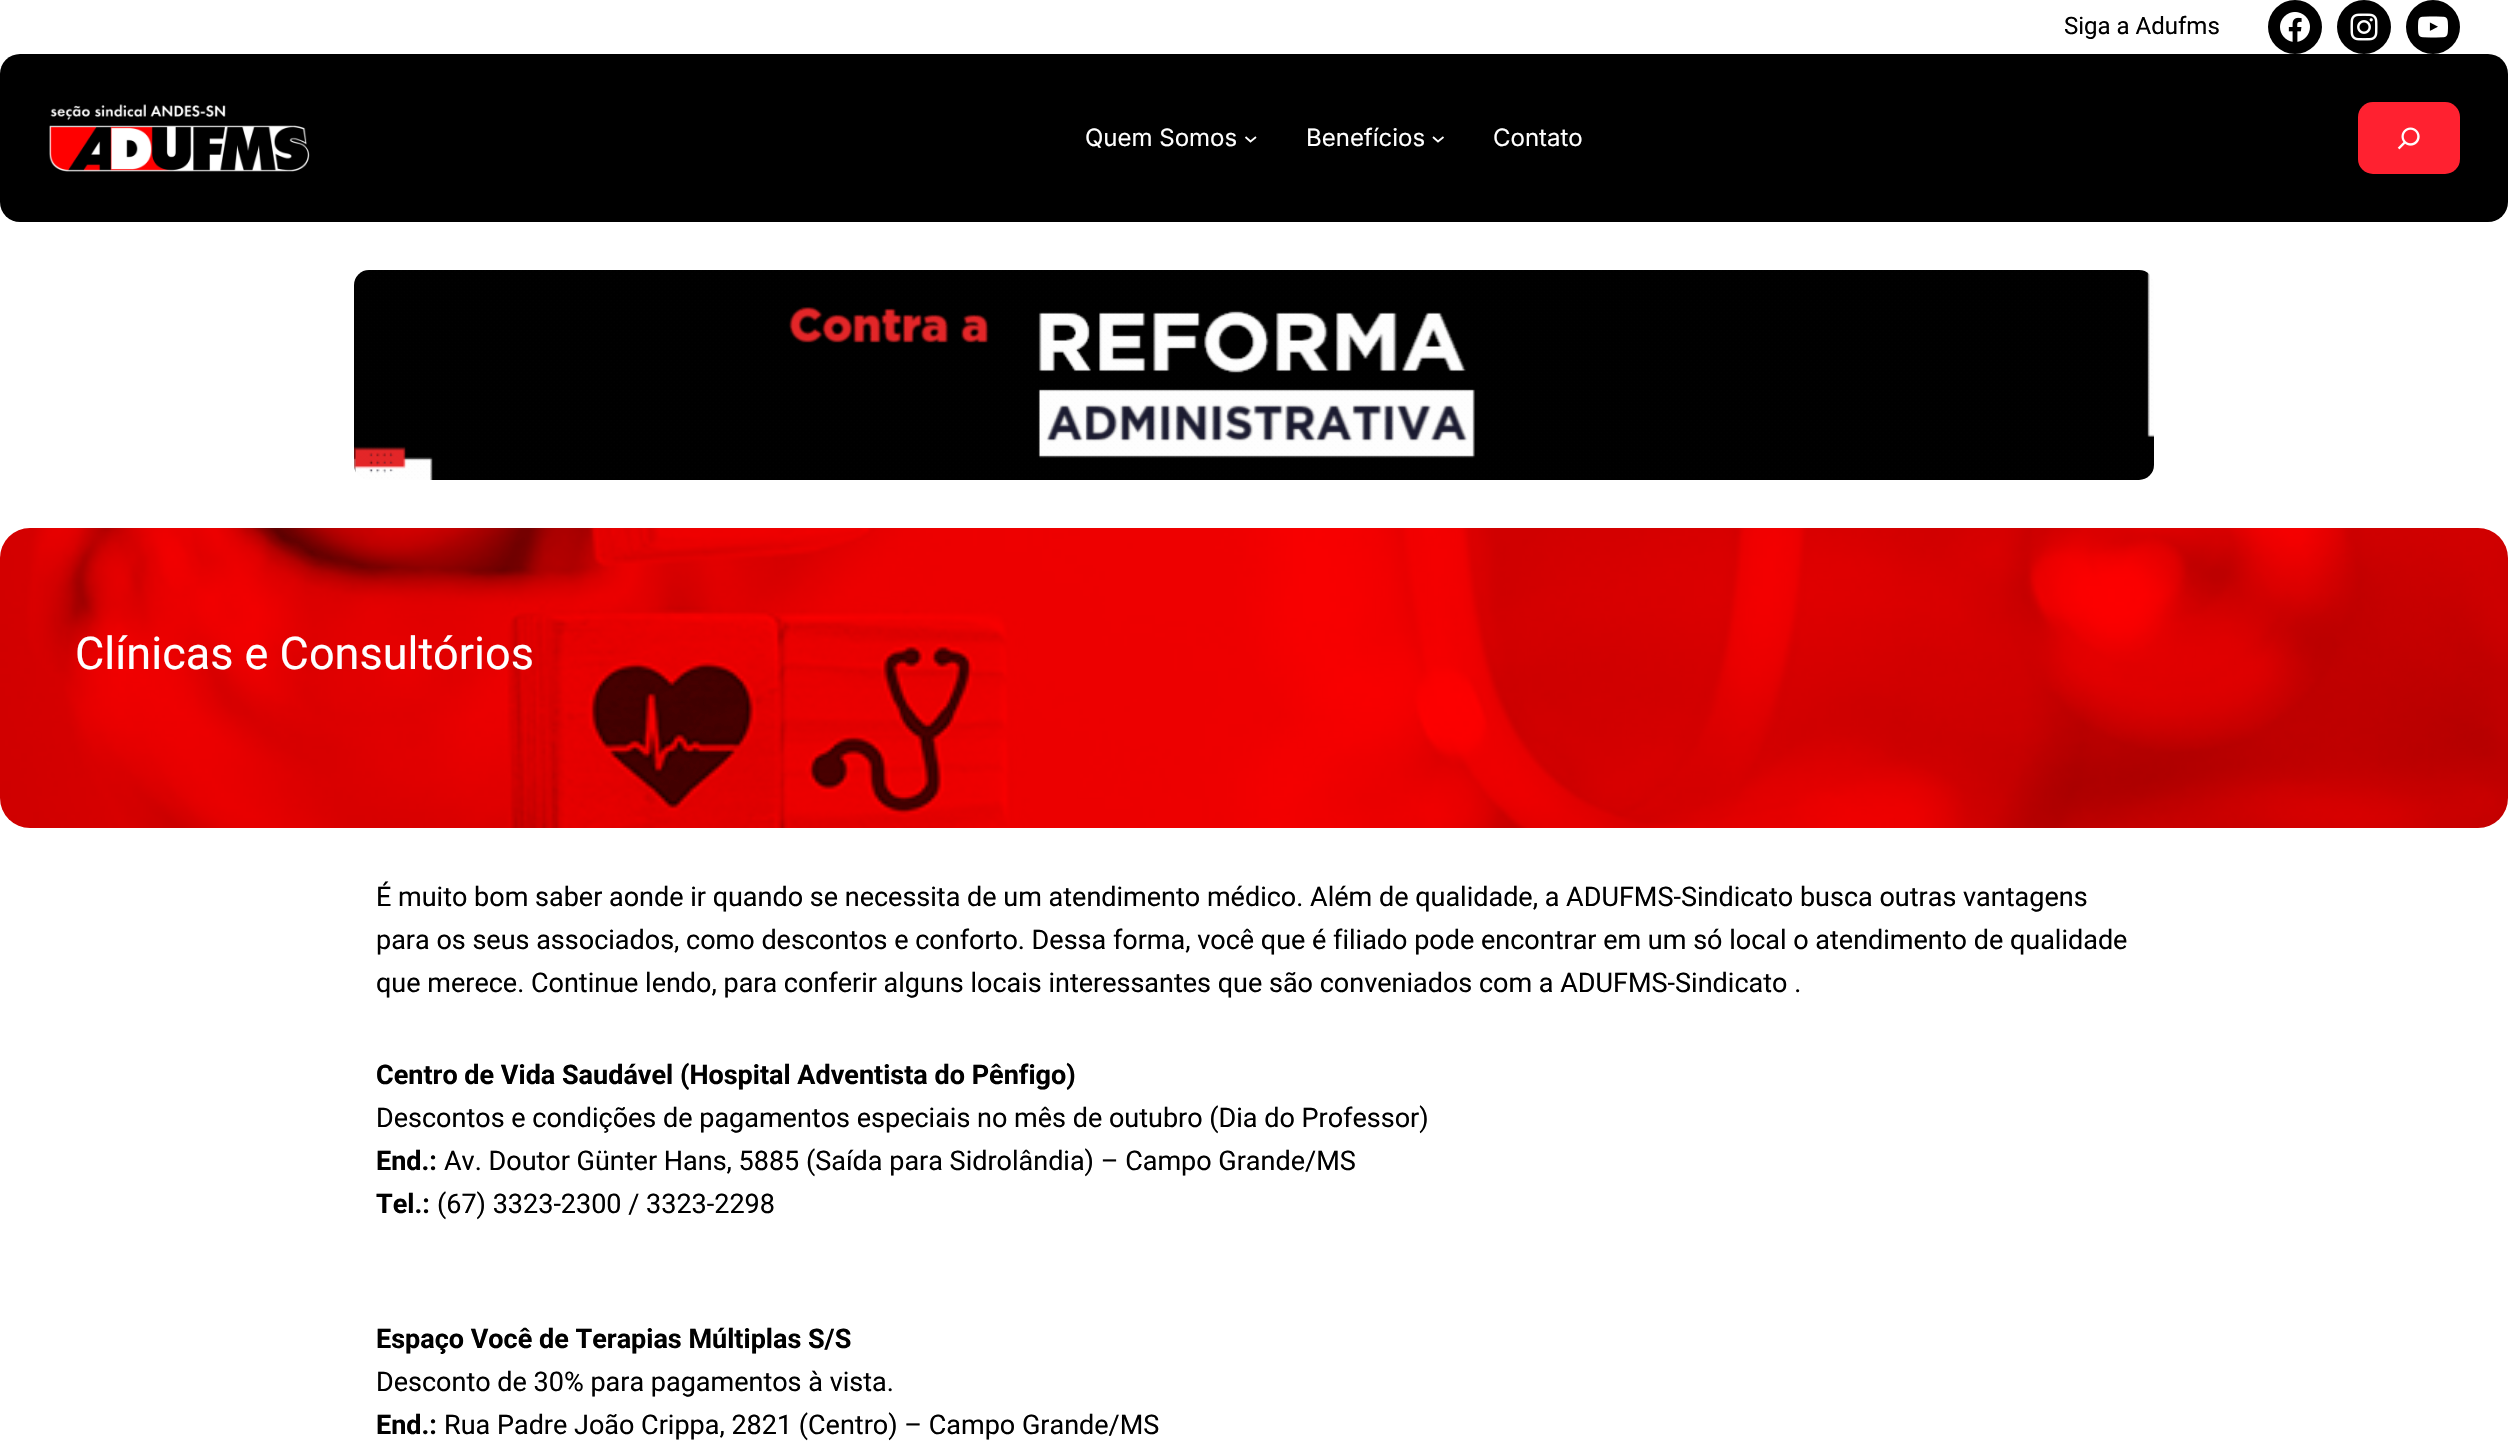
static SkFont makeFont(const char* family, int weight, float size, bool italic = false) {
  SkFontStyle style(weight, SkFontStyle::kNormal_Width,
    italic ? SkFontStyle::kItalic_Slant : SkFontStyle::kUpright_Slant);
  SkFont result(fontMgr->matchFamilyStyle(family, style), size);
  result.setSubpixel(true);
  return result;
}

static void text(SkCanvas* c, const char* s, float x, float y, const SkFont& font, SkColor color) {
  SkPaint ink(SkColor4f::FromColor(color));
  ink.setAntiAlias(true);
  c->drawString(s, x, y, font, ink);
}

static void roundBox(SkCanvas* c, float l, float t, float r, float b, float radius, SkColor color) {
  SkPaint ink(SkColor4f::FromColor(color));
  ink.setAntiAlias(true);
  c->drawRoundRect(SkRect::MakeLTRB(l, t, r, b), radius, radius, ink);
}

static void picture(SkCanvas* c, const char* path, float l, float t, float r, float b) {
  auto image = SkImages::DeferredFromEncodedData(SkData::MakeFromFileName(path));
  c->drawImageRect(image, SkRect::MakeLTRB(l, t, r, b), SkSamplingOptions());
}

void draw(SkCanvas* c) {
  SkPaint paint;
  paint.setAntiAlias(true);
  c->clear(0xffffffff);
  SkFont face1 = makeFont("Roboto", 400, 24);
  text(c, "Siga a Adufms", 2064, 34, face1, 0xff000000);
  paint.setColor(0xff000000);
  c->drawCircle(2295, 27, 27, paint);
  picture(c, "img_01.png", 2280, 12, 2310, 42);
  c->drawCircle(2364, 27, 27, paint);
  picture(c, "img_02.png", 2350, 13, 2378, 41);
  c->drawCircle(2433, 27, 27, paint);
  picture(c, "img_03.png", 2418, 16, 2448, 38);
  roundBox(c, 0, 54, 2508, 222, 20, 0xff000000);
  picture(c, "img_04.png", 49, 104, 310, 172);
  SkFont face2 = makeFont("Inter", 400, 24);
  text(c, "Quem Somos", 1085, 146, face2, 0xffffffff);
  paint.setStyle(SkPaint::kStroke_Style);
  paint.setStrokeWidth(1.8f);
  paint.setColor(0xffffffff);
  c->drawPath(SkPathBuilder().moveTo(1245.5f, 137).lineTo(1250.5f, 141.5f).lineTo(1256, 137).detach(), paint);
  text(c, "Benefícios", 1306, 146, face2, 0xffffffff);
  c->drawPath(SkPathBuilder().moveTo(1433, 137).lineTo(1438, 141.5f).lineTo(1443.5f, 137).detach(), paint);
  text(c, "Contato", 1493, 146, face2, 0xffffffff);
  roundBox(c, 2358, 102, 2460, 174, 15, 0xffff2130);
  picture(c, "img_05.png", 2397, 127, 2420, 150);
  picture(c, "img_06.png", 354, 270, 2154, 480);
  picture(c, "img_07.png", 0, 528, 2508, 828);
  SkFont face3 = makeFont("Roboto", 400, 45);
  text(c, "Clínicas e Consultórios", 75, 669, face3, 0xffffffff);
  SkFont face4 = makeFont("Roboto", 400, 27);
  text(c, "É muito bom saber aonde ir quando se necessita de um atendimento médico. Além de qualidade, a ADUFMS-Sindicato busca outras vantagens", 376, 906, face4, 0xff000000);
  text(c, "para os seus associados, como descontos e conforto. Dessa forma, você que é filiado pode encontrar em um só local o atendimento de qualidade", 376, 949, face4, 0xff000000);
  text(c, "que merece. Continue lendo, para conferir alguns locais interessantes que são conveniados com a ADUFMS-Sindicato .", 376, 992, face4, 0xff000000);
  SkFont face5 = makeFont("Roboto", 700, 27);
  text(c, "Centro de Vida Saudável (Hospital Adventista do Pênfigo)", 376, 1084, face5, 0xff000000);
  text(c, "Descontos e condições de pagamentos especiais no mês de outubro (Dia do Professor)", 376, 1127, face4, 0xff000000);
  text(c, "End.:", 376, 1170, face5, 0xff000000);
  text(c, "Av. Doutor Günter Hans, 5885 (Saída para Sidrolândia) – Campo Grande/MS", 444, 1170, face4, 0xff000000);
  text(c, "Tel.:", 376, 1213, face5, 0xff000000);
  text(c, "(67) 3323-2300 / 3323-2298", 437, 1213, face4, 0xff000000);
  text(c, "Espaço Você de Terapias Múltiplas S/S", 376, 1348, face5, 0xff000000);
  text(c, "Desconto de 30% para pagamentos à vista.", 376, 1391, face4, 0xff000000);
  text(c, "End.:", 376, 1434, face5, 0xff000000);
  text(c, "Rua Padre João Crippa, 2821 (Centro) – Campo Grande/MS", 444, 1434, face4, 0xff000000);
}
